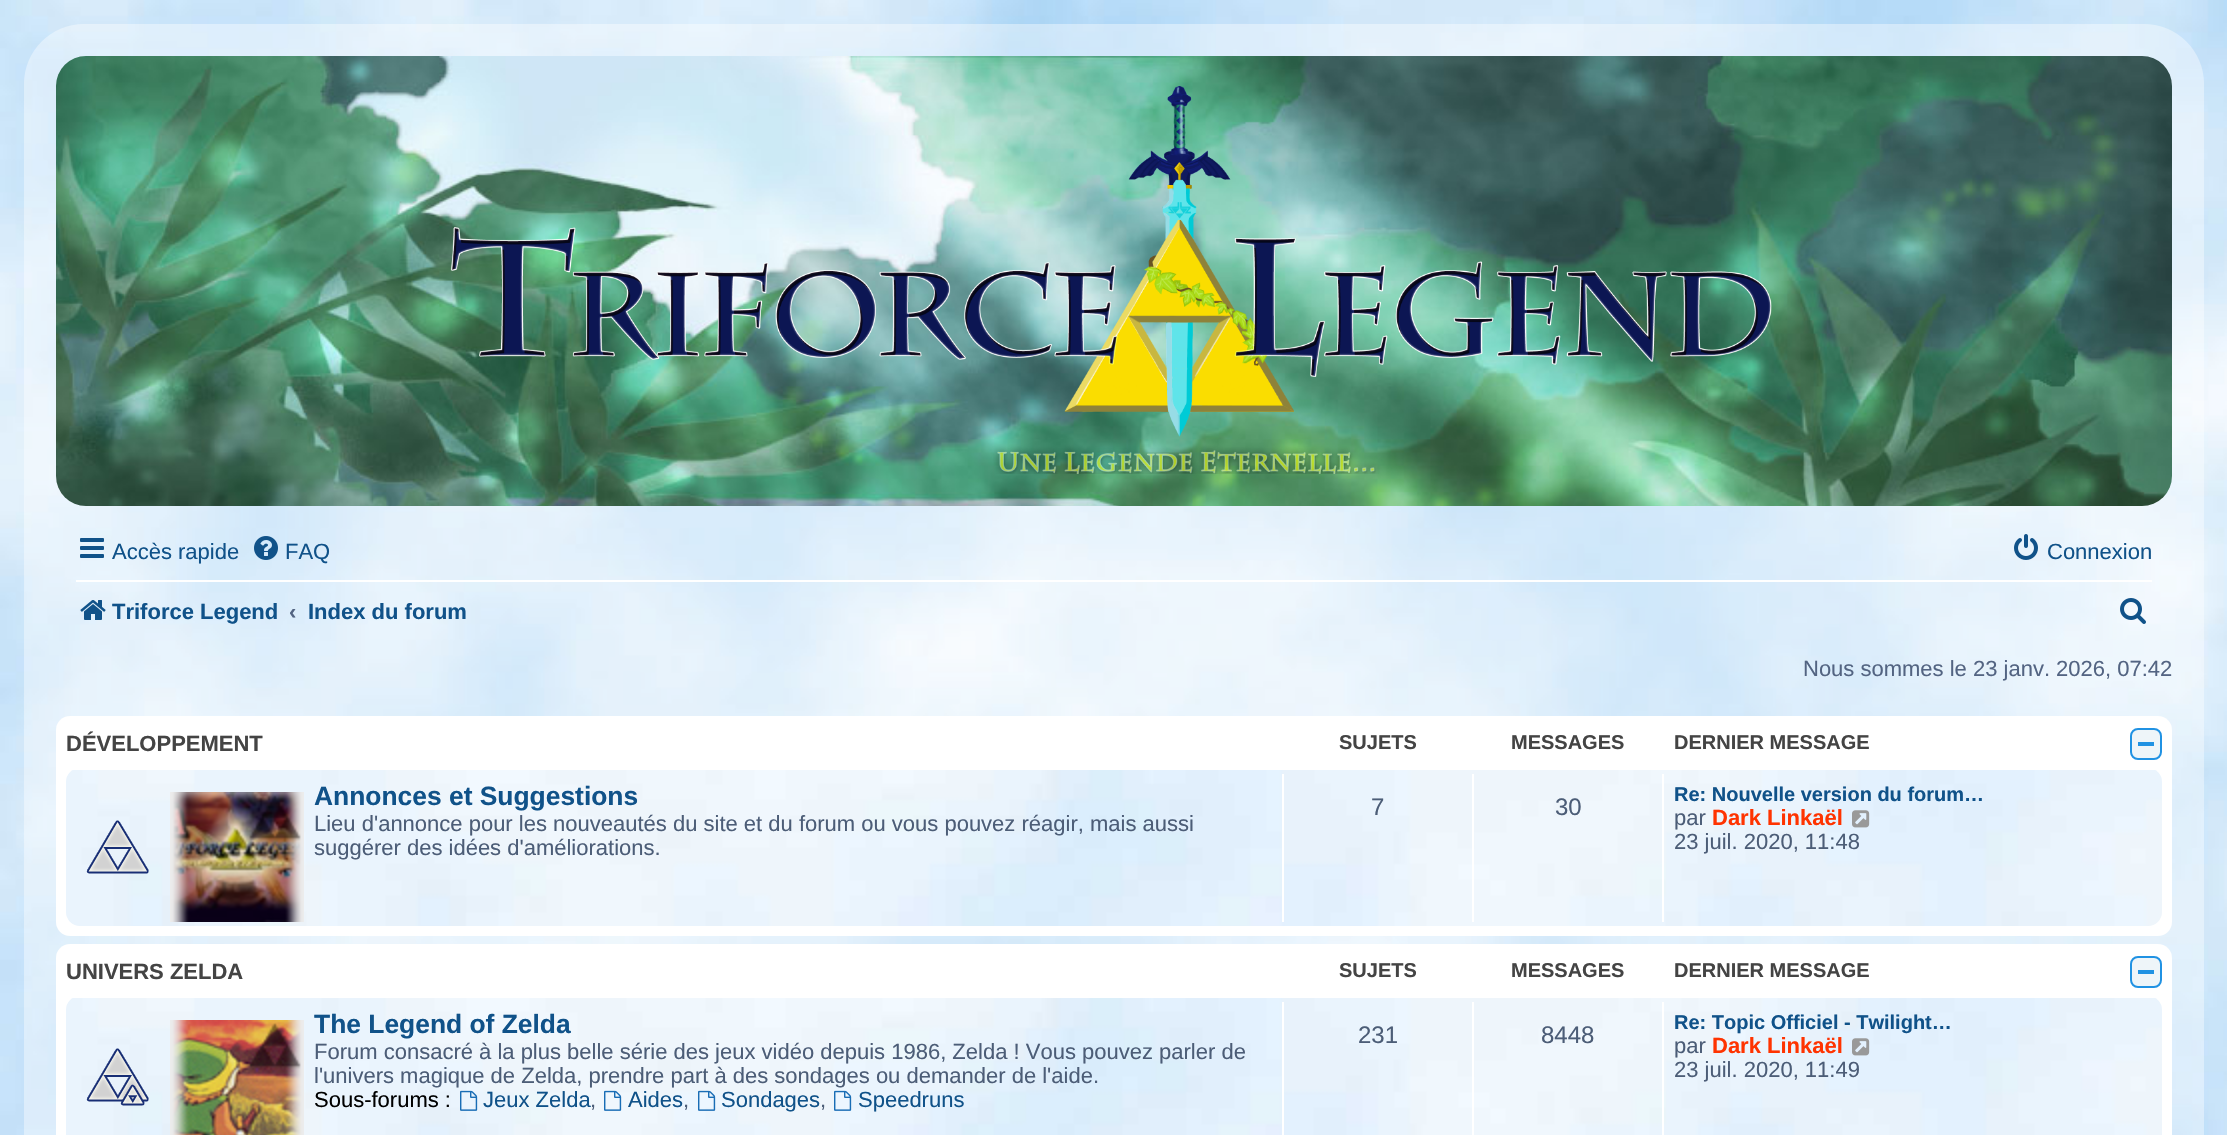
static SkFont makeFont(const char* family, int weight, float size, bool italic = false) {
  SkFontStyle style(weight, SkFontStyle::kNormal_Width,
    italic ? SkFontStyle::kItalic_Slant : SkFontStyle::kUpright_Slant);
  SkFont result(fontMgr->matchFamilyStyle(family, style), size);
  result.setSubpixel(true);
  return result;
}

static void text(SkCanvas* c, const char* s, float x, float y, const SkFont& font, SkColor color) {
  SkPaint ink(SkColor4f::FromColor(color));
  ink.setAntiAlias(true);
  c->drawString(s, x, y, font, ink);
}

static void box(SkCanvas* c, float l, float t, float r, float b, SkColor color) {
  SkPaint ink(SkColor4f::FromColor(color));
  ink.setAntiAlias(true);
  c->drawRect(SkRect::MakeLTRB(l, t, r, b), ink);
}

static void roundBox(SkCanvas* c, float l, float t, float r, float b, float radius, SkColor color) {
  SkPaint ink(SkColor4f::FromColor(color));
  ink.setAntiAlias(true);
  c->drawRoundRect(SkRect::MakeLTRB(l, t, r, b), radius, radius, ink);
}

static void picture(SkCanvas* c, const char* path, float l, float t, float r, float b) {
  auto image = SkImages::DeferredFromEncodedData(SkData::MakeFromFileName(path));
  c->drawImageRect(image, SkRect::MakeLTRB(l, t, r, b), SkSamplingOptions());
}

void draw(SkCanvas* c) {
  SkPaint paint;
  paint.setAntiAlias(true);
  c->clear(0xffffffff);
  picture(c, "img_01.png", 0, 0, 2227, 1135);
  picture(c, "img_02.png", 56, 56, 2172, 506);
  picture(c, "img_03.png", 450, 86, 1772, 474);
  picture(c, "img_04.png", 80, 538, 104, 558);
  SkFont face1 = makeFont("Liberation Sans", 400, 22);
  text(c, "Accès rapide", 112, 559, face1, 0xff105289);
  picture(c, "img_05.png", 254, 536, 278, 560);
  text(c, "FAQ", 285, 559, face1, 0xff105289);
  picture(c, "img_06.png", 2014, 534, 2038, 560);
  text(c, "Connexion", 2047, 559, face1, 0xff105289);
  box(c, 76, 580, 2152, 582, 0xffffffff);
  picture(c, "img_07.png", 80, 600, 106, 620);
  SkFont face2 = makeFont("Liberation Sans", 700, 22);
  text(c, "Triforce Legend", 112, 619, face2, 0xff105289);
  text(c, "‹", 289, 619, face2, 0xff536482);
  text(c, "Index du forum", 308, 619, face2, 0xff105289);
  picture(c, "img_08.png", 2120, 598, 2146, 624);
  text(c, "Nous sommes le 23 janv. 2026, 07:42", 1803, 676, face1, 0xff536482);
  roundBox(c, 56, 716, 2172, 936, 14, 0xffffffff);
  text(c, "DÉVELOPPEMENT", 66, 751, face2, 0xff444444);
  SkFont face3 = makeFont("Liberation Sans", 700, 20);
  text(c, "SUJETS", 1339, 749, face3, 0xff444444);
  text(c, "MESSAGES", 1511, 749, face3, 0xff444444);
  text(c, "DERNIER MESSAGE", 1674, 749, face3, 0xff444444);
  paint.setColor(0xffeef5f9);
  c->drawRoundRect(SkRect::MakeLTRB(2131, 729, 2161, 759), 7, 7, paint);
  paint.setStyle(SkPaint::kStroke_Style);
  paint.setStrokeWidth(2);
  paint.setColor(0xff2092e3);
  c->drawRoundRect(SkRect::MakeLTRB(2131, 729, 2161, 759), 7, 7, paint);
  box(c, 2138, 742, 2154, 746, 0xff2092e3);
  picture(c, "img_09.png", 66, 770, 2162, 926);
  picture(c, "img_10.png", 86, 820, 149, 874);
  picture(c, "img_11.png", 170, 792, 304, 922);
  SkFont face4 = makeFont("Liberation Sans", 700, 26.4f);
  text(c, "Annonces et Suggestions", 314, 805, face4, 0xff105289);
  text(c, "Lieu d'annonce pour les nouveautés du site et du forum ou vous pouvez réagir, mais aussi", 314, 831, face1, 0xff4c5d77);
  text(c, "suggérer des idées d'améliorations.", 314, 855, face1, 0xff4c5d77);
  box(c, 1282, 774, 1284, 922, 0xffffffff);
  SkFont face5 = makeFont("Liberation Sans", 400, 24);
  text(c, "7", 1371, 815, face5, 0xff4c5d77);
  box(c, 1472, 774, 1474, 922, 0xffffffff);
  text(c, "30", 1555, 815, face5, 0xff4c5d77);
  box(c, 1662, 774, 1664, 922, 0xffffffff);
  text(c, "Re: Nouvelle version du forum…", 1674, 801, face3, 0xff105289);
  text(c, "par", 1674, 825, face1, 0xff4c5d77);
  text(c, "Dark Linkaël", 1712, 825, face2, 0xffff3300);
  picture(c, "img_12.png", 1852, 810, 1870, 828);
  text(c, "23 juil. 2020, 11:48", 1674, 849, face1, 0xff4c5d77);
  roundBox(c, 56, 944, 2172, 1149, 14, 0xffffffff);
  text(c, "UNIVERS ZELDA", 66, 979, face2, 0xff444444);
  text(c, "SUJETS", 1339, 977, face3, 0xff444444);
  text(c, "MESSAGES", 1511, 977, face3, 0xff444444);
  text(c, "DERNIER MESSAGE", 1674, 977, face3, 0xff444444);
  paint.setStyle(SkPaint::kFill_Style);
  paint.setColor(0xffeef5f9);
  c->drawRoundRect(SkRect::MakeLTRB(2131, 957, 2161, 987), 7, 7, paint);
  paint.setStyle(SkPaint::kStroke_Style);
  paint.setColor(0xff2092e3);
  c->drawRoundRect(SkRect::MakeLTRB(2131, 957, 2161, 987), 7, 7, paint);
  box(c, 2138, 970, 2154, 974, 0xff2092e3);
  picture(c, "img_13.png", 66, 998, 2162, 1135);
  picture(c, "img_14.png", 86, 1048, 149, 1106);
  picture(c, "img_15.png", 170, 1020, 304, 1135);
  text(c, "The Legend of Zelda", 314, 1033, face4, 0xff105289);
  text(c, "Forum consacré à la plus belle série des jeux vidéo depuis 1986, Zelda ! Vous pouvez parler de", 314, 1059, face1, 0xff4c5d77);
  text(c, "l'univers magique de Zelda, prendre part à des sondages ou demander de l'aide.", 314, 1083, face1, 0xff4c5d77);
  text(c, "Sous-forums :", 314, 1107, face1, 0xff000000);
  picture(c, "img_16.png", 460, 1090, 478, 1111);
  text(c, "Jeux Zelda", 483, 1107, face1, 0xff105289);
  text(c, ",", 590, 1107, face1, 0xff4c5d77);
  picture(c, "img_17.png", 604, 1090, 622, 1111);
  text(c, "Aides", 628, 1107, face1, 0xff105289);
  text(c, ",", 683, 1107, face1, 0xff4c5d77);
  picture(c, "img_18.png", 698, 1090, 716, 1111);
  text(c, "Sondages", 721, 1107, face1, 0xff105289);
  text(c, ",", 820, 1107, face1, 0xff4c5d77);
  picture(c, "img_19.png", 834, 1090, 852, 1111);
  text(c, "Speedruns", 858, 1107, face1, 0xff105289);
  box(c, 1282, 1002, 1284, 1135, 0xffffffff);
  text(c, "231", 1358, 1043, face5, 0xff4c5d77);
  box(c, 1472, 1002, 1474, 1135, 0xffffffff);
  text(c, "8448", 1541, 1043, face5, 0xff4c5d77);
  box(c, 1662, 1002, 1664, 1135, 0xffffffff);
  text(c, "Re: Topic Officiel - Twilight…", 1674, 1029, face3, 0xff105289);
  text(c, "par", 1674, 1053, face1, 0xff4c5d77);
  text(c, "Dark Linkaël", 1712, 1053, face2, 0xffff3300);
  picture(c, "img_12.png", 1852, 1038, 1870, 1056);
  text(c, "23 juil. 2020, 11:49", 1674, 1077, face1, 0xff4c5d77);
}
